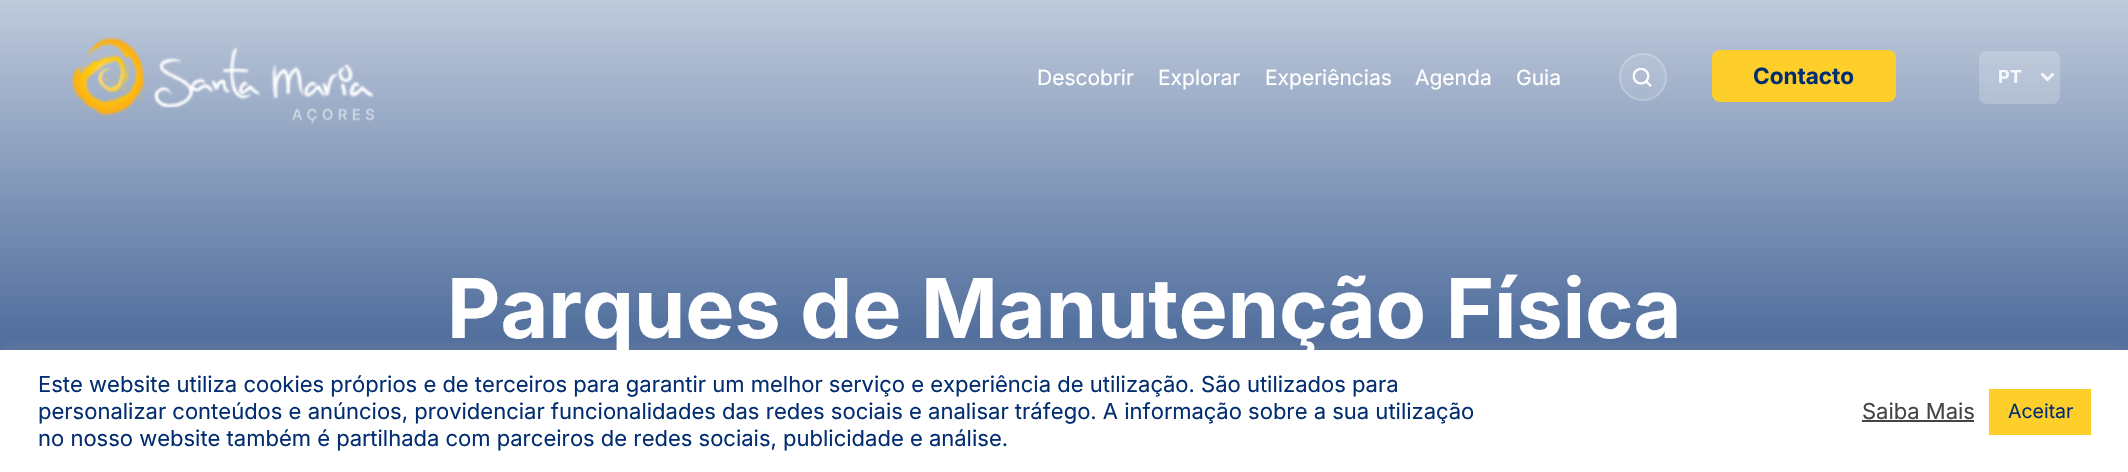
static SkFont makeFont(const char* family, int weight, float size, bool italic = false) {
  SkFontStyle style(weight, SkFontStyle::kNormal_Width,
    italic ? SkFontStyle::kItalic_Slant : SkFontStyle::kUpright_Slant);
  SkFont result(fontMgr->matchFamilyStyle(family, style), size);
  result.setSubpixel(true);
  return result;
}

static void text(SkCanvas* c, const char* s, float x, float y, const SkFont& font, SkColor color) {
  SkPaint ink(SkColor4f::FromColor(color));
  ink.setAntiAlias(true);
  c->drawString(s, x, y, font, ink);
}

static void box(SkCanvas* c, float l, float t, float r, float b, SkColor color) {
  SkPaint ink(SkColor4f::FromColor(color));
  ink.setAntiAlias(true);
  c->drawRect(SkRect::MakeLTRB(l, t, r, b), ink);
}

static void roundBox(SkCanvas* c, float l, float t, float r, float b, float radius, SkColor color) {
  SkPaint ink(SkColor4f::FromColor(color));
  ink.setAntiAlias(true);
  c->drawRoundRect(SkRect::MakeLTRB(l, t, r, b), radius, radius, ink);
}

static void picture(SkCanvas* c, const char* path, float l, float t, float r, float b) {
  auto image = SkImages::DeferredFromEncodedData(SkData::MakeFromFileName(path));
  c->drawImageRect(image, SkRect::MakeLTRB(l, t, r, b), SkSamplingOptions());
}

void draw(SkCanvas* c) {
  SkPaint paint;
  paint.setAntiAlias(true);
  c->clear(0xffffffff);
  {
    const SkColor colors[] = {0xff36588e, 0xffffffff};
    const float stops[] = {0.08f, 1};
    const SkPoint ends[] = {{1064, 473}, {1064, -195}};
    paint.setShader(SkGradientShader::MakeLinear(ends, colors, stops, 2, SkTileMode::kClamp));
    paint.setAlpha(255);
  }
  c->drawRect(SkRect::MakeLTRB(0, 0, 2128, 350), paint);
  picture(c, "img_01.png", 72, 37, 374, 124);
  SkFont face1 = makeFont("Inter", 400, 21);
  text(c, "Descobrir", 1037, 85, face1, 0xffffffff);
  text(c, "Explorar", 1158, 85, face1, 0xffffffff);
  text(c, "Experiências", 1265, 85, face1, 0xffffffff);
  text(c, "Agenda", 1415, 85, face1, 0xffffffff);
  text(c, "Guia", 1516, 85, face1, 0xffffffff);
  paint.setShader(nullptr);
  paint.setColor(0x1affffff);
  c->drawCircle(1643, 77, 24, paint);
  paint.setStyle(SkPaint::kStroke_Style);
  paint.setStrokeWidth(2);
  paint.setColor(0x33ffffff);
  c->drawCircle(1643, 77, 23, paint);
  picture(c, "img_02.png", 1632, 68, 1652, 87);
  roundBox(c, 1712, 50, 1896, 102, 8, 0xfffece2a);
  SkFont face2 = makeFont("Inter", 700, 22.5f);
  text(c, "Contacto", 1753, 84, face2, 0xff022e71);
  roundBox(c, 1979, 51, 2060, 104, 8, 0x33ffffff);
  paint.setStrokeWidth(3);
  paint.setColor(0xfff4f8fb);
  c->drawPath(SkPathBuilder().moveTo(2041.5f, 73.5f).lineTo(2047.5f, 79.5f).lineTo(2053.5f, 73.5f).detach(), paint);
  SkFont face3 = makeFont("Inter", 700, 18);
  text(c, "PT", 1998, 83, face3, 0xfff4f8fb);
  paint.setStyle(SkPaint::kFill_Style);
  paint.setColor(0x4dacabab);
  paint.setMaskFilter(SkMaskFilter::MakeBlur(kNormal_SkBlurStyle, 7.5f));
  c->drawRect(SkRect::MakeLTRB(0, 348, 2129, 471), paint);
  paint.setMaskFilter(nullptr);
  box(c, 0, 350, 2128, 472, 0xffffffff);
  SkFont face4 = makeFont("Inter", 700, 82.5f);
  text(c, "Parques de Manutenção Física", 447, 338, face4, 0xffffffff);
  SkFont face5 = makeFont("Inter", 400, 22);
  text(c, "Este website utiliza cookies próprios e de terceiros para garantir um melhor serviço e experiência de utilização. São utilizados para", 38, 392, face5, 0xff022e71);
  text(c, "personalizar conteúdos e anúncios, providenciar funcionalidades das redes sociais e analisar tráfego. A informação sobre a sua utilização", 38, 419, face5, 0xff022e71);
  text(c, "no nosso website também é partilhada com parceiros de redes sociais, publicidade e análise.", 38, 446, face5, 0xff022e71);
  text(c, "Saiba Mais", 1862, 419, face5, 0xff444444);
  box(c, 1862, 420, 1974, 422, 0xff444444);
  box(c, 1989, 389, 2091, 435, 0xfffece2a);
  SkFont face6 = makeFont("Inter", 400, 19.5f);
  text(c, "Aceitar", 2008, 418, face6, 0xff022e71);
}
